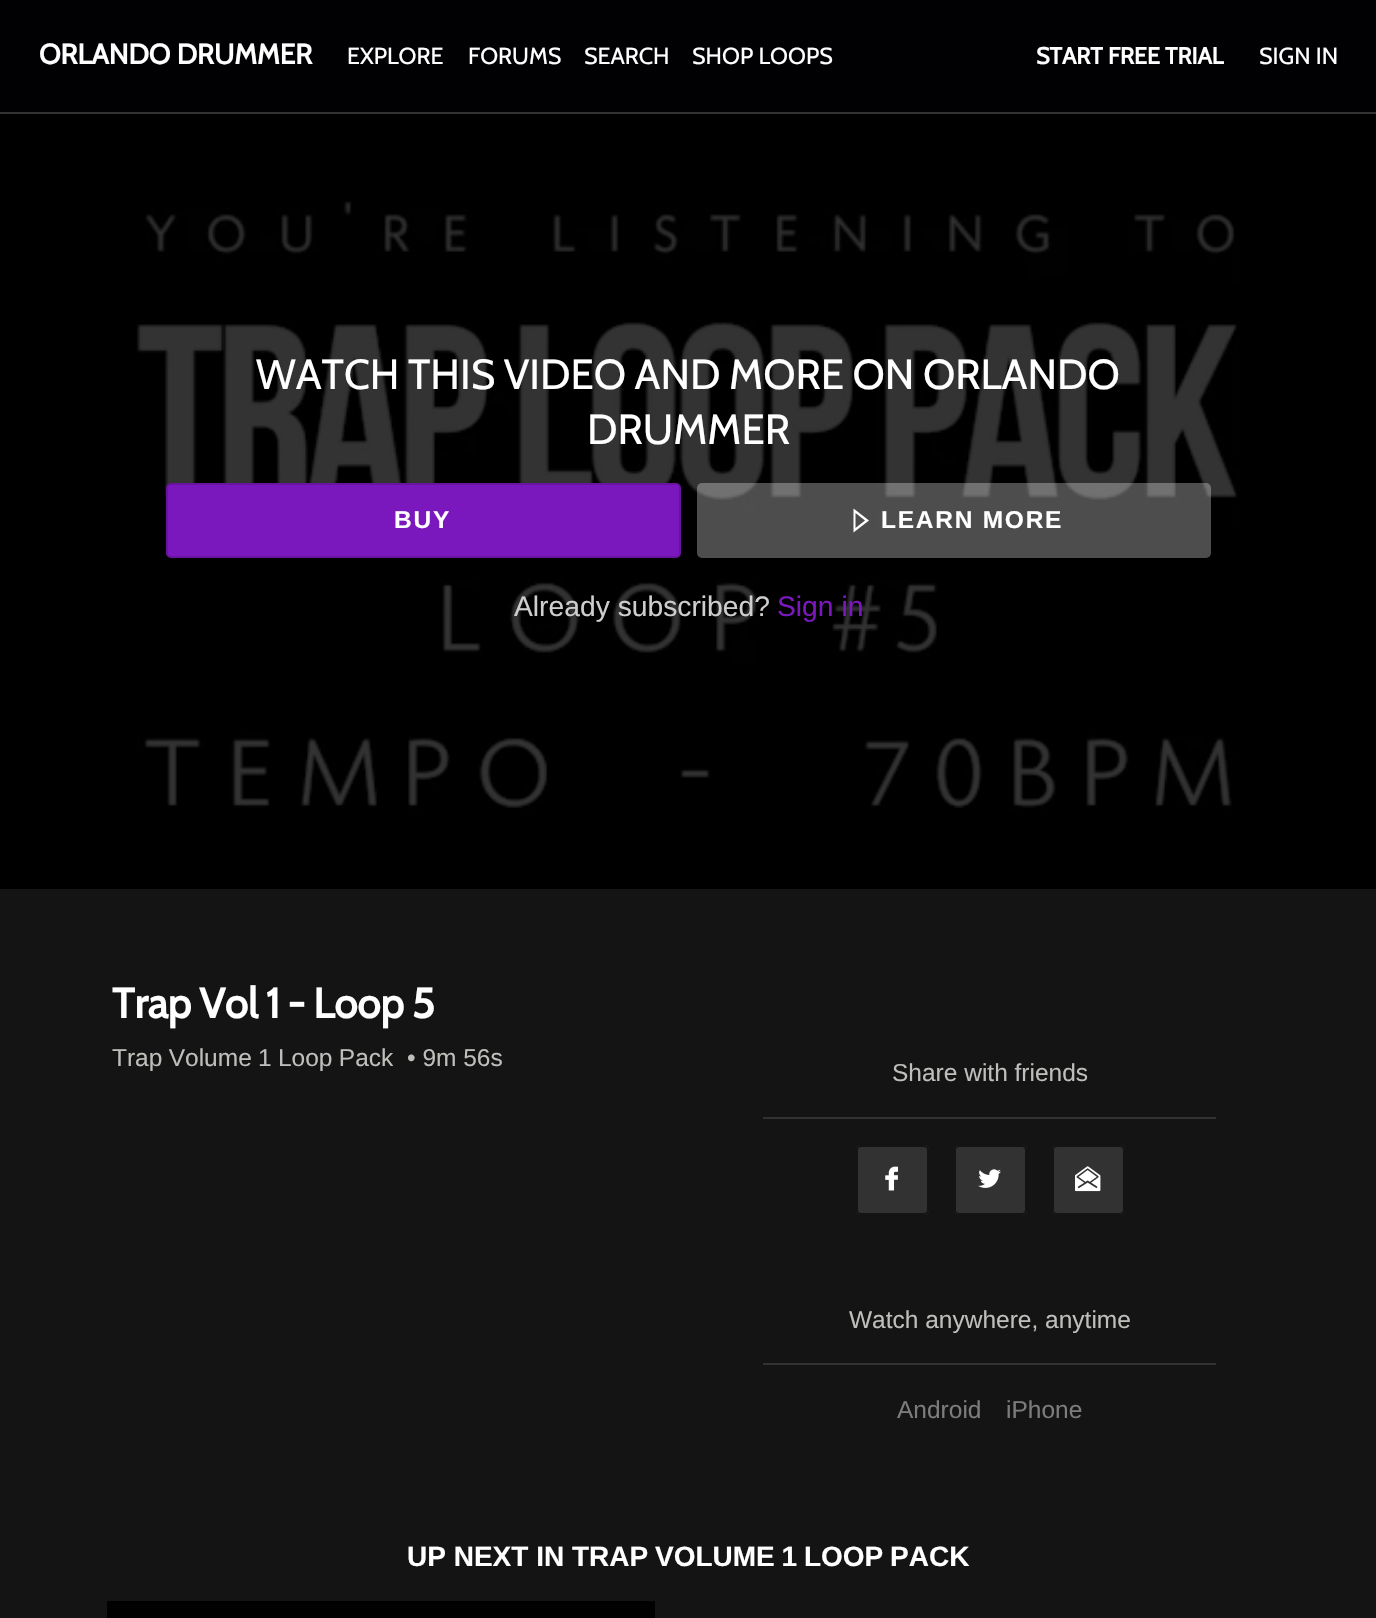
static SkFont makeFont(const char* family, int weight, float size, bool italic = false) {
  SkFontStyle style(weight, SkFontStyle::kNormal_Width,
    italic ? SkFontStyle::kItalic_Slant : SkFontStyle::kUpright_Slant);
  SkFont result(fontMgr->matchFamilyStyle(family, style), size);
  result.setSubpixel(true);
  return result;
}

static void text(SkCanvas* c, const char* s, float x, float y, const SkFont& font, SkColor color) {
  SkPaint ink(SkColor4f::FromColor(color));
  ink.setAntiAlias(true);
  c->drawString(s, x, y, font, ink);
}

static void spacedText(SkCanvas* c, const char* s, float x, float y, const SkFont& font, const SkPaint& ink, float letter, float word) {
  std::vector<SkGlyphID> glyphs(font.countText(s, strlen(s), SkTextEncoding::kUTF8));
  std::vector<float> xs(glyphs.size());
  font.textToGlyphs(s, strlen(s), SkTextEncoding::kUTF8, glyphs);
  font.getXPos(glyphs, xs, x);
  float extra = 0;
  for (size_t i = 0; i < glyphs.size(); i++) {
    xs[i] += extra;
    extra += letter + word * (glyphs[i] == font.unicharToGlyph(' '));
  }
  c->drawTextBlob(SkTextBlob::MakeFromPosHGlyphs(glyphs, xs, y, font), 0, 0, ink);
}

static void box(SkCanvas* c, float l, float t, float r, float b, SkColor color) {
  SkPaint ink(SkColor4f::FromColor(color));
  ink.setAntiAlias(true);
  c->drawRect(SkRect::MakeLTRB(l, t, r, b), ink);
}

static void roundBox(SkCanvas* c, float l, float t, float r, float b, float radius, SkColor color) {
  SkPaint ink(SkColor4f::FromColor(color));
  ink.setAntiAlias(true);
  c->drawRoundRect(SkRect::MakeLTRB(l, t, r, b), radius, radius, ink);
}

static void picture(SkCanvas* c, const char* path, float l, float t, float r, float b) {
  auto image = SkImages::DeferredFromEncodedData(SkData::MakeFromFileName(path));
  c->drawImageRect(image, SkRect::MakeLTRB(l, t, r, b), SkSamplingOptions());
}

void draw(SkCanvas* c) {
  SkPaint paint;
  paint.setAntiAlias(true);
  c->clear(0xff141414);
  box(c, 0, 0, 1376, 112, 0xff010003);
  box(c, 0, 112, 1376, 114, 0xff323232);
  SkFont face1 = makeFont("Cabin", 700, 28);
  text(c, "ORLANDO DRUMMER", 39, 64, face1, 0xffffffff);
  SkFont face2 = makeFont("Cabin", 400, 23.25f);
  text(c, "EXPLORE", 347, 64, face2, 0xffffffff);
  text(c, "FORUMS", 468, 64, face2, 0xffffffff);
  text(c, "SEARCH", 584, 64, face2, 0xffffffff);
  text(c, "SHOP LOOPS", 692, 64, face2, 0xffffffff);
  SkFont face3 = makeFont("Cabin", 700, 23.25f);
  text(c, "START FREE TRIAL", 1036, 64, face3, 0xffffffff);
  text(c, "SIGN IN", 1259, 64, face2, 0xffffffff);
  box(c, 0, 114, 1376, 889, 0xff000000);
  picture(c, "img_01.png", 136, 200, 1241, 812);
  SkFont face4 = makeFont("Cabin", 400, 42);
  paint.setColor(0xffffffff);
  spacedText(c, "WATCH THIS VIDEO AND MORE ON ORLANDO", 256, 389, face4, paint, 0, -1);
  text(c, "DRUMMER", 587, 444, face4, 0xffffffff);
  paint.setColor(0xff7b18bd);
  c->drawRoundRect(SkRect::MakeLTRB(167, 484, 680, 557), 4, 4, paint);
  paint.setStyle(SkPaint::kStroke_Style);
  paint.setStrokeWidth(2);
  paint.setColor(0xff6914a1);
  c->drawRoundRect(SkRect::MakeLTRB(167, 484, 680, 557), 4, 4, paint);
  SkFont face5 = makeFont("Liberation Sans", 700, 24.5f);
  paint.setStyle(SkPaint::kFill_Style);
  paint.setColor(0xffffffff);
  spacedText(c, "BUY", 394, 528, face5, paint, 1.75f, 0);
  roundBox(c, 697, 483, 1211, 558, 5, 0x4dffffff);
  c->drawPath(SkPathBuilder().moveTo(853.5f, 532.5f).lineTo(853.5f, 508.5f).lineTo(869, 520.5f).close().moveTo(855.5f, 513).lineTo(855.5f, 528).lineTo(865, 520.5f).close().detach(), paint);
  spacedText(c, "LEARN MORE", 881, 528, face5, paint, 1.75f, 0);
  SkFont face6 = makeFont("Liberation Sans", 400, 28.25f);
  text(c, "Already subscribed?", 514, 616, face6, 0xffcecece);
  text(c, "Sign in", 777, 616, face6, 0xff7b18bd);
  SkFont face7 = makeFont("Cabin", 700, 42);
  spacedText(c, "Trap Vol 1 - Loop 5", 112, 1018, face7, paint, 0, -1.5f);
  SkFont face8 = makeFont("Liberation Sans", 400, 24.5f);
  paint.setColor(0xffbebebb);
  spacedText(c, "Trap Volume 1 Loop Pack", 112, 1066, face8, paint, 0, -0.5f);
  text(c, "• 9m 56s", 407, 1066, face8, 0xffbebebb);
  box(c, 763, 1117, 1216, 1119, 0xff323232);
  text(c, "Share with friends", 892, 1081, face8, 0xffbebebb);
  roundBox(c, 856, 1145, 929, 1215, 5, 0xff323232);
  picture(c, "img_02.png", 885, 1166, 898, 1191);
  paint.setStyle(SkPaint::kStroke_Style);
  paint.setColor(0xff141414);
  c->drawRoundRect(SkRect::MakeLTRB(857, 1146, 928, 1214), 4, 4, paint);
  roundBox(c, 954, 1145, 1027, 1215, 5, 0xff323232);
  picture(c, "img_03.png", 978, 1169, 1001, 1188);
  c->drawRoundRect(SkRect::MakeLTRB(955, 1146, 1026, 1214), 4, 4, paint);
  roundBox(c, 1052, 1145, 1125, 1215, 5, 0xff323232);
  picture(c, "img_04.png", 1075, 1166, 1101, 1192);
  c->drawRoundRect(SkRect::MakeLTRB(1053, 1146, 1124, 1214), 4, 4, paint);
  box(c, 763, 1363, 1216, 1365, 0xff323232);
  text(c, "Watch anywhere, anytime", 849, 1328, face8, 0xffbebebb);
  text(c, "Android", 897, 1418, face8, 0xff7c7c7c);
  text(c, "iPhone", 1006, 1418, face8, 0xff7c7c7c);
  SkFont face9 = makeFont("Liberation Sans", 700, 28);
  text(c, "UP NEXT IN", 407, 1566, face9, 0xffffffff);
  paint.setStyle(SkPaint::kFill_Style);
  paint.setColor(0xffffffff);
  spacedText(c, "TRAP VOLUME 1 LOOP PACK", 572, 1566, face9, paint, 0, -1);
  box(c, 107, 1601, 655, 1618, 0xff010101);
}
